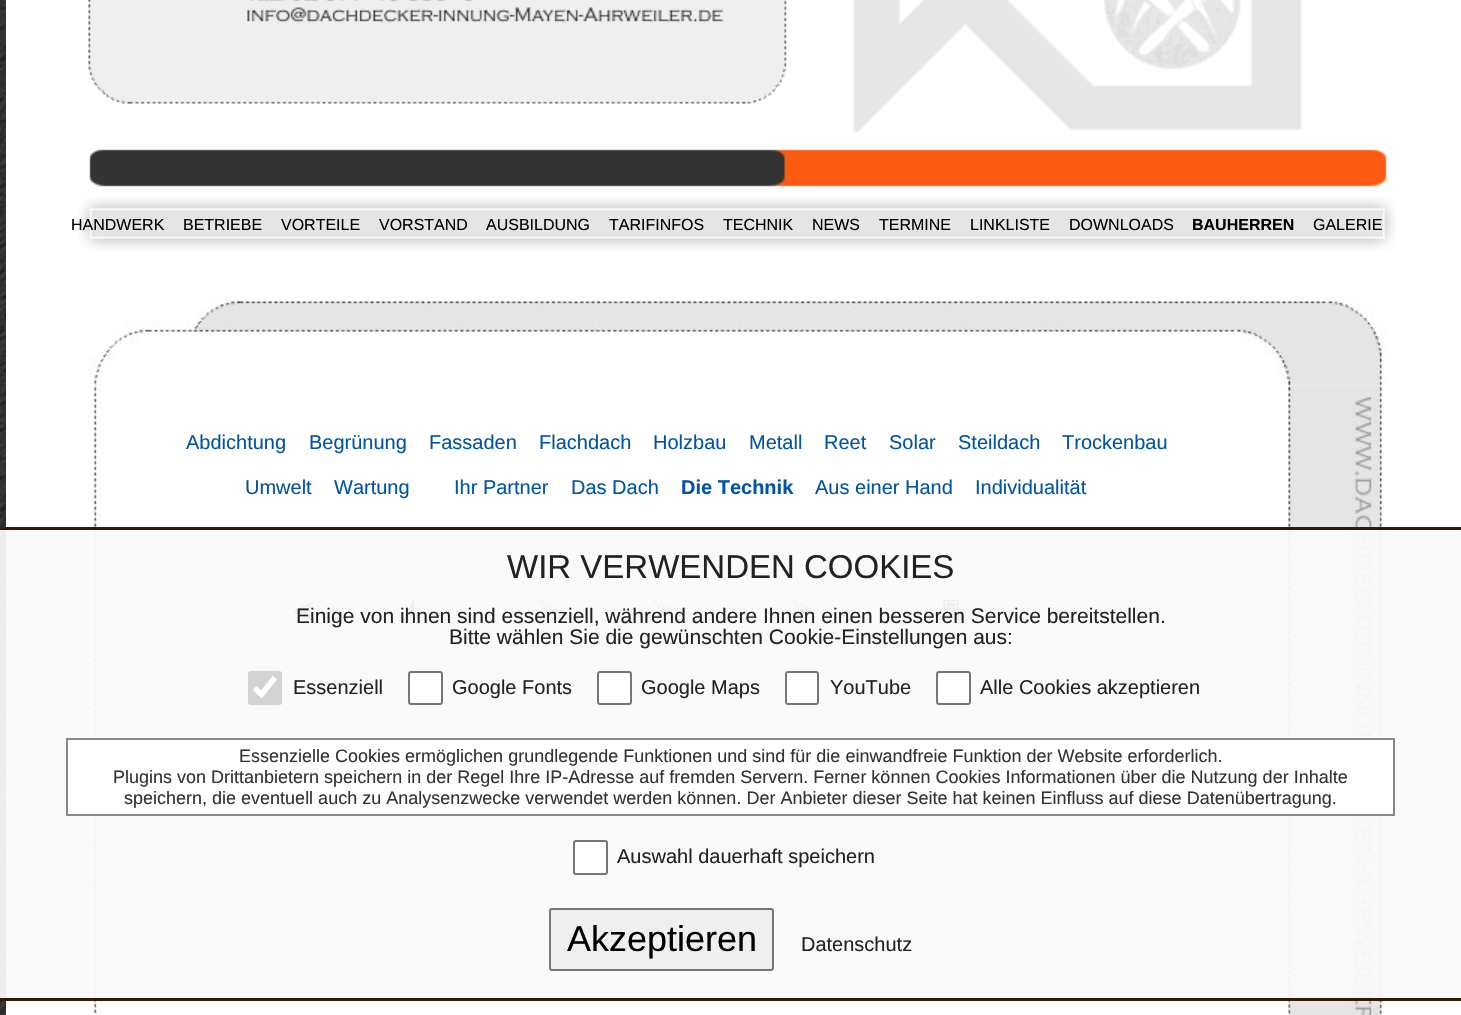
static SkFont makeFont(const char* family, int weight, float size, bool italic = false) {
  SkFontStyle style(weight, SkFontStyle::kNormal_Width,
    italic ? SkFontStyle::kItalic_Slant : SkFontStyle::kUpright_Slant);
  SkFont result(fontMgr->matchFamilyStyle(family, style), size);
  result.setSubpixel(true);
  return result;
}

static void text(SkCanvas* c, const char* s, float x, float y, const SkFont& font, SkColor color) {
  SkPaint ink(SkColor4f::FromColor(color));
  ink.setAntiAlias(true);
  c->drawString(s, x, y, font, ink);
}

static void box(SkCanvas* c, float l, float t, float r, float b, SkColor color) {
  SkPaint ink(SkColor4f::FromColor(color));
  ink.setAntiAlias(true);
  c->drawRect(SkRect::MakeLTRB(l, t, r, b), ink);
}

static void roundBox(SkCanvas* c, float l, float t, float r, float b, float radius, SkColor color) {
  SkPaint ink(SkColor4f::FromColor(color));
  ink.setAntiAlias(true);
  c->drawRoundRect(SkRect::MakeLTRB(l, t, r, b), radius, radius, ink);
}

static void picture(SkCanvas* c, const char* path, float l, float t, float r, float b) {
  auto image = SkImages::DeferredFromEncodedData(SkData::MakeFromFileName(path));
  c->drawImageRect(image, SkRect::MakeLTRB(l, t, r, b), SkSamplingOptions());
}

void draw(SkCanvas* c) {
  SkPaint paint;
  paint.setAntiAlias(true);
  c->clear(0xffffffff);
  picture(c, "img_01.png", 0, 0, 6, 1015);
  picture(c, "img_02.png", 0, 99, 1, 998);
  picture(c, "img_03.png", 6, 0, 1461, 135);
  picture(c, "img_04.png", 6, 135, 1461, 273);
  SkFont face1 = makeFont("Liberation Sans", 400, 16);
  text(c, "HANDWERK", 71, 230, face1, 0xff000000);
  text(c, "BETRIEBE", 183, 230, face1, 0xff000000);
  text(c, "VORTEILE", 281, 230, face1, 0xff000000);
  text(c, "VORSTAND", 379, 230, face1, 0xff000000);
  text(c, "AUSBILDUNG", 486, 230, face1, 0xff000000);
  text(c, "TARIFINFOS", 609, 230, face1, 0xff000000);
  text(c, "TECHNIK", 723, 230, face1, 0xff000000);
  text(c, "NEWS", 812, 230, face1, 0xff000000);
  text(c, "TERMINE", 879, 230, face1, 0xff000000);
  text(c, "LINKLISTE", 970, 230, face1, 0xff000000);
  text(c, "DOWNLOADS", 1069, 230, face1, 0xff000000);
  SkFont face2 = makeFont("Liberation Sans", 700, 16);
  text(c, "BAUHERREN", 1192, 230, face2, 0xff000000);
  text(c, "GALERIE", 1313, 230, face1, 0xff000000);
  picture(c, "img_05.png", 90, 297, 1386, 386);
  picture(c, "img_06.png", 92, 385, 102, 1015);
  SkFont face3 = makeFont("Liberation Sans", 400, 20);
  text(c, "Abdichtung", 186, 449, face3, 0xff0054a5);
  text(c, "Begrünung", 309, 449, face3, 0xff0054a5);
  text(c, "Fassaden", 429, 449, face3, 0xff0054a5);
  text(c, "Flachdach", 539, 449, face3, 0xff0054a5);
  text(c, "Holzbau", 653, 449, face3, 0xff0054a5);
  text(c, "Metall", 749, 449, face3, 0xff0054a5);
  text(c, "Reet", 824, 449, face3, 0xff0054a5);
  text(c, "Solar", 889, 449, face3, 0xff0054a5);
  text(c, "Steildach", 958, 449, face3, 0xff0054a5);
  text(c, "Trockenbau", 1062, 449, face3, 0xff0054a5);
  text(c, "Umwelt", 245, 494, face3, 0xff0054a5);
  text(c, "Wartung", 334, 494, face3, 0xff0054a5);
  text(c, "Ihr Partner", 454, 494, face3, 0xff0054a5);
  text(c, "Das Dach", 571, 494, face3, 0xff0054a5);
  SkFont face4 = makeFont("Liberation Sans", 700, 20);
  text(c, "Die Technik", 681, 494, face4, 0xff0054a5);
  text(c, "Aus einer Hand", 815, 494, face3, 0xff0054a5);
  text(c, "Individualität", 975, 494, face3, 0xff0054a5);
  picture(c, "img_07.png", 293, 601, 314, 622);
  picture(c, "img_08.png", 403, 599, 424, 620);
  picture(c, "img_09.png", 539, 599, 560, 620);
  picture(c, "img_09.png", 653, 599, 674, 620);
  picture(c, "img_10.png", 793, 599, 814, 620);
  picture(c, "img_11.png", 938, 599, 964, 620);
  picture(c, "img_12.png", 1287, 385, 1383, 1015);
  box(c, 0, 530, 1461, 998, 0xf0fafafa);
  box(c, 0, 527, 1461, 530, 0xff311e00);
  box(c, 0, 998, 1461, 1001, 0xff311e00);
  SkFont face5 = makeFont("Liberation Sans", 400, 33);
  text(c, "WIR VERWENDEN COOKIES", 507, 578, face5, 0xff222222);
  SkFont face6 = makeFont("Liberation Sans", 400, 21);
  text(c, "Einige von ihnen sind essenziell, während andere Ihnen einen besseren Service bereitstellen.", 296, 623, face6, 0xff222222);
  text(c, "Bitte wählen Sie die gewünschten Cookie-Einstellungen aus:", 449, 644, face6, 0xff222222);
  roundBox(c, 248, 671, 282, 705, 3, 0xffd3d3d3);
  paint.setStyle(SkPaint::kStroke_Style);
  paint.setStrokeWidth(5.5f);
  paint.setColor(0xffffffff);
  c->drawPath(SkPathBuilder().moveTo(254.5f, 688).lineTo(261.5f, 694.5f).lineTo(275, 677.5f).detach(), paint);
  text(c, "Essenziell", 293, 694, face3, 0xff222222);
  paint.setStyle(SkPaint::kFill_Style);
  c->drawRoundRect(SkRect::MakeLTRB(409, 672, 442, 704), 2, 2, paint);
  paint.setStyle(SkPaint::kStroke_Style);
  paint.setStrokeWidth(2);
  paint.setColor(0xff767676);
  c->drawRoundRect(SkRect::MakeLTRB(409, 672, 442, 704), 2, 2, paint);
  text(c, "Google Fonts", 452, 694, face3, 0xff222222);
  paint.setStyle(SkPaint::kFill_Style);
  paint.setColor(0xffffffff);
  c->drawRoundRect(SkRect::MakeLTRB(598, 672, 631, 704), 2, 2, paint);
  paint.setStyle(SkPaint::kStroke_Style);
  paint.setColor(0xff767676);
  c->drawRoundRect(SkRect::MakeLTRB(598, 672, 631, 704), 2, 2, paint);
  text(c, "Google Maps", 641, 694, face3, 0xff222222);
  paint.setStyle(SkPaint::kFill_Style);
  paint.setColor(0xffffffff);
  c->drawRoundRect(SkRect::MakeLTRB(786, 672, 818, 704), 2, 2, paint);
  paint.setStyle(SkPaint::kStroke_Style);
  paint.setColor(0xff767676);
  c->drawRoundRect(SkRect::MakeLTRB(786, 672, 818, 704), 2, 2, paint);
  text(c, "YouTube", 830, 694, face3, 0xff222222);
  paint.setStyle(SkPaint::kFill_Style);
  paint.setColor(0xffffffff);
  c->drawRoundRect(SkRect::MakeLTRB(937, 672, 970, 704), 2, 2, paint);
  paint.setStyle(SkPaint::kStroke_Style);
  paint.setColor(0xff767676);
  c->drawRoundRect(SkRect::MakeLTRB(937, 672, 970, 704), 2, 2, paint);
  text(c, "Alle Cookies akzeptieren", 980, 694, face3, 0xff222222);
  paint.setStyle(SkPaint::kFill_Style);
  paint.setColor(0xfaffffff);
  c->drawRect(SkRect::MakeLTRB(67, 739, 1394, 815), paint);
  paint.setStyle(SkPaint::kStroke_Style);
  paint.setColor(0xff888888);
  c->drawRect(SkRect::MakeLTRB(67, 739, 1394, 815), paint);
  SkFont face7 = makeFont("Liberation Sans", 400, 18);
  text(c, "Essenzielle Cookies ermöglichen grundlegende Funktionen und sind für die einwandfreie Funktion der Website erforderlich.", 239, 762, face7, 0xff333333);
  text(c, "Plugins von Drittanbietern speichern in der Regel Ihre IP-Adresse auf fremden Servern. Ferner können Cookies Informationen über die Nutzung der Inhalte", 113, 783, face7, 0xff333333);
  text(c, "speichern, die eventuell auch zu Analysenzwecke verwendet werden können. Der Anbieter dieser Seite hat keinen Einfluss auf diese Datenübertragung.", 124, 804, face7, 0xff333333);
  paint.setStyle(SkPaint::kFill_Style);
  paint.setColor(0xffffffff);
  c->drawRoundRect(SkRect::MakeLTRB(574, 841, 607, 874), 2, 2, paint);
  paint.setStyle(SkPaint::kStroke_Style);
  paint.setColor(0xff767676);
  c->drawRoundRect(SkRect::MakeLTRB(574, 841, 607, 874), 2, 2, paint);
  text(c, "Auswahl dauerhaft speichern", 617, 863, face3, 0xff222222);
  paint.setStyle(SkPaint::kFill_Style);
  paint.setColor(0xffefefef);
  c->drawRoundRect(SkRect::MakeLTRB(550, 909, 773, 970), 2, 2, paint);
  paint.setStyle(SkPaint::kStroke_Style);
  paint.setColor(0xff767676);
  c->drawRoundRect(SkRect::MakeLTRB(550, 909, 773, 970), 2, 2, paint);
  SkFont face8 = makeFont("Liberation Sans", 400, 36);
  text(c, "Akzeptieren", 567, 951, face8, 0xff000000);
  text(c, "Datenschutz", 801, 951, face3, 0xff222222);
}
